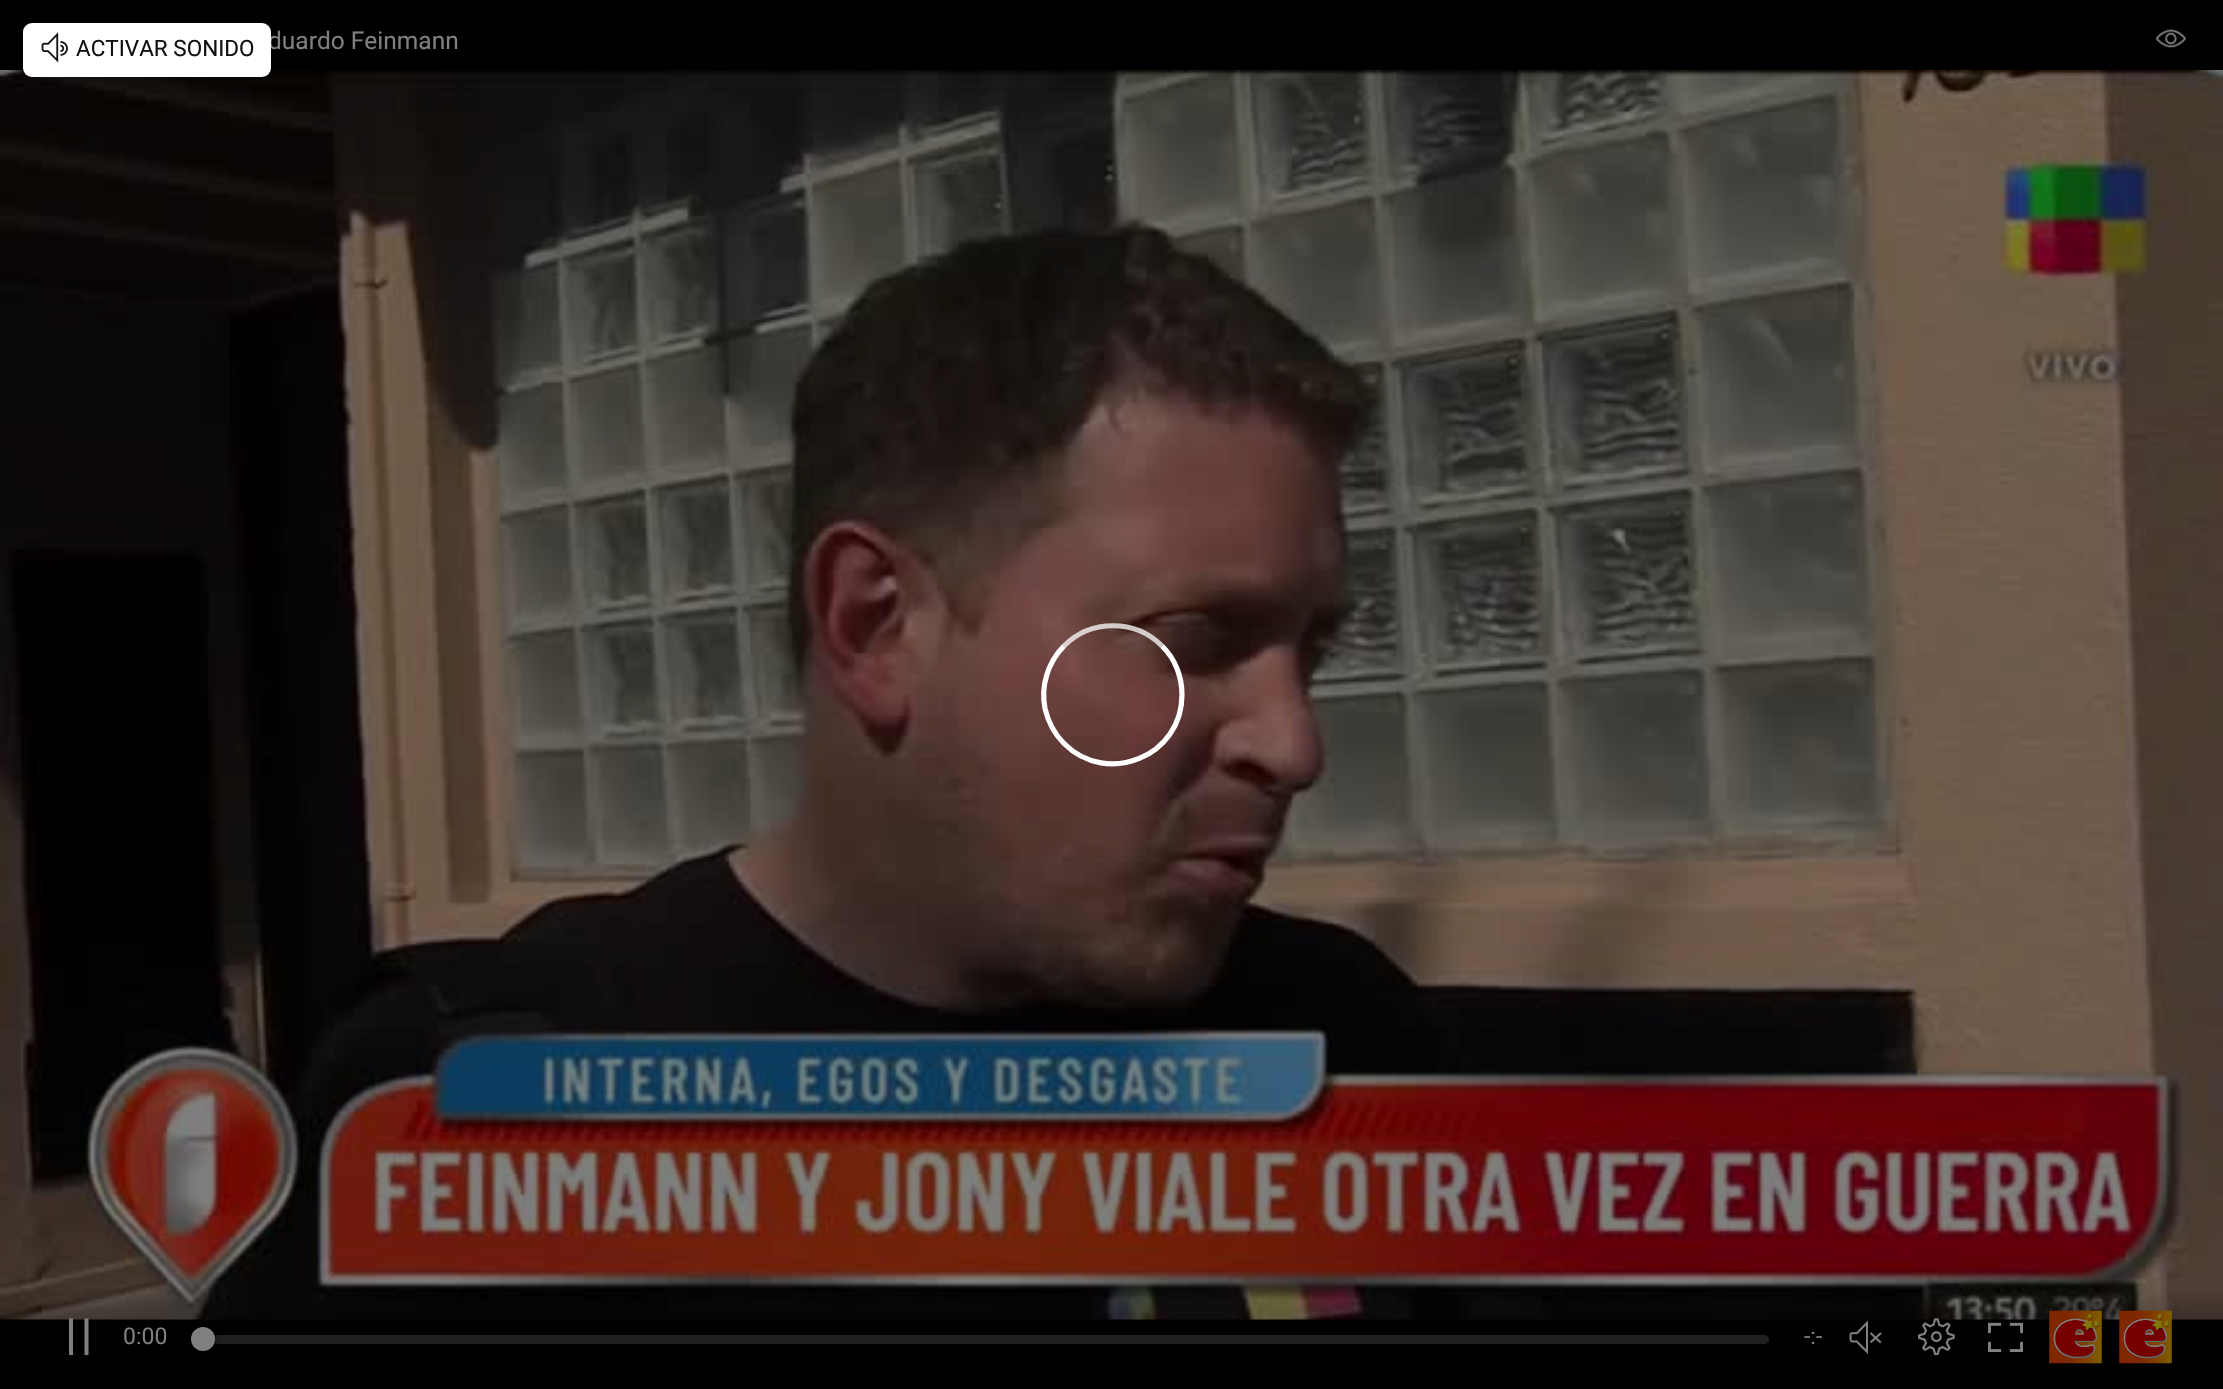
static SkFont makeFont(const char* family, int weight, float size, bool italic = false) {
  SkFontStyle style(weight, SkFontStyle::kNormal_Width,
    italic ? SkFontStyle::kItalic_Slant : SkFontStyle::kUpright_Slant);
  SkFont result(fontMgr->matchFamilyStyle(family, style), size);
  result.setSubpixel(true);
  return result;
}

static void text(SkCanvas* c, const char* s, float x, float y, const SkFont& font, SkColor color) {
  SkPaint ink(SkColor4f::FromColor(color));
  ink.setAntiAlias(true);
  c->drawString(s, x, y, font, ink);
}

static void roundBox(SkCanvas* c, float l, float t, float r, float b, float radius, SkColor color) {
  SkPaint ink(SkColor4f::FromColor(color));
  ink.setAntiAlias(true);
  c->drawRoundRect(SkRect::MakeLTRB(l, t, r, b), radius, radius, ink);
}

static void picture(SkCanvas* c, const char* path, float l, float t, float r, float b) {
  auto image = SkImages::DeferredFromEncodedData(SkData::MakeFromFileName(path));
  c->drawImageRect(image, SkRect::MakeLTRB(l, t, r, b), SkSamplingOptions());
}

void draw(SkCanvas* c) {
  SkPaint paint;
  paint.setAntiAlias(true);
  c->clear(0xff000000);
  picture(c, "img_03.png", 0, 70, 2223, 1320);
  {
    const SkColor colors[] = {0x66000000, 0x00000000};
    const float stops[] = {0, 1};
    const SkPoint ends[] = {{1112, 0}, {1112, 81}};
    paint.setShader(SkGradientShader::MakeLinear(ends, colors, stops, 2, SkTileMode::kClamp));
    paint.setAlpha(255);
  }
  c->drawRect(SkRect::MakeLTRB(0, 70, 2223, 77), paint);
  SkFont face1 = makeFont("Roboto", 400, 24.5f);
  text(c, "duardo Feinmann", 268, 49, face1, 0xff808080);
  picture(c, "img_01.png", 2156, 29, 2186, 48);
  roundBox(c, 23, 23, 271, 77, 9, 0xffffffff);
  picture(c, "img_02.png", 41, 32, 68, 63);
  SkFont face2 = makeFont("Roboto", 400, 22.5f);
  text(c, "ACTIVAR SONIDO", 76, 56, face2, 0xff121212);
  paint.setStyle(SkPaint::kStroke_Style);
  paint.setStrokeWidth(5.2f);
  paint.setShader(nullptr);
  paint.setColor(0xbfffffff);
  c->drawPath(SkPathBuilder().moveTo(1064, 646).cubicTo(1090.5f, 619, 1135.5f, 619, 1162, 646).detach(), paint);
  paint.setColor(0xffffffff);
  c->drawPath(SkPathBuilder().moveTo(1162, 646).cubicTo(1175, 658.5f, 1182, 676.5f, 1182, 695).cubicTo(1182, 756, 1107.5f, 787, 1064, 743.5f).cubicTo(1054.5f, 734, 1048, 721.5f, 1045, 708.5f).cubicTo(1040.5f, 686, 1048, 662, 1064, 646).detach(), paint);
  paint.setStyle(SkPaint::kFill_Style);
  {
    const SkColor colors[] = {0x00000000, 0x40000000, 0x54000000, 0x80000000};
    const float stops[] = {0, 0.39f, 0.95f, 1};
    const SkPoint ends[] = {{1112, 1284}, {1112, 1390}};
    paint.setShader(SkGradientShader::MakeLinear(ends, colors, stops, 4, SkTileMode::kClamp));
    paint.setAlpha(255);
  }
  c->drawRect(SkRect::MakeLTRB(0, 1288, 2223, 1320), paint);
  paint.setShader(nullptr);
  paint.setColor(0xff808080);
  c->drawPath(SkPathBuilder().moveTo(69, 1355).lineTo(73, 1355).lineTo(73, 1318.5f).lineTo(69, 1318.5f).close().moveTo(84.5f, 1318.5f).lineTo(84.5f, 1355).lineTo(88.5f, 1355).lineTo(88.5f, 1318.5f).close().detach(), paint);
  SkFont face3 = makeFont("Roboto", 400, 23);
  text(c, "0:00", 123, 1344, face3, 0xff808080);
  roundBox(c, 201, 1335, 1769, 1344, 4.5f, 0xff202020);
  paint.setColor(0xa8000000);
  paint.setMaskFilter(SkMaskFilter::MakeBlur(kNormal_SkBlurStyle, 5));
  c->drawRoundRect(SkRect::MakeLTRB(191, 1327, 215, 1351), 12, 12, paint);
  paint.setMaskFilter(nullptr);
  paint.setColor(0xff808080);
  c->drawCircle(203, 1339, 12, paint);
  text(c, "-:-", 1804, 1344, face3, 0xff808080);
  picture(c, "img_04.png", 1849, 1320, 1882, 1354);
  picture(c, "img_05.png", 1918, 1318, 1955, 1356);
  picture(c, "img_06.png", 1988, 1322, 2023, 1353);
  picture(c, "img_07.png", 2049, 1310, 2102, 1364);
  picture(c, "img_08.png", 2119, 1310, 2172, 1364);
}
